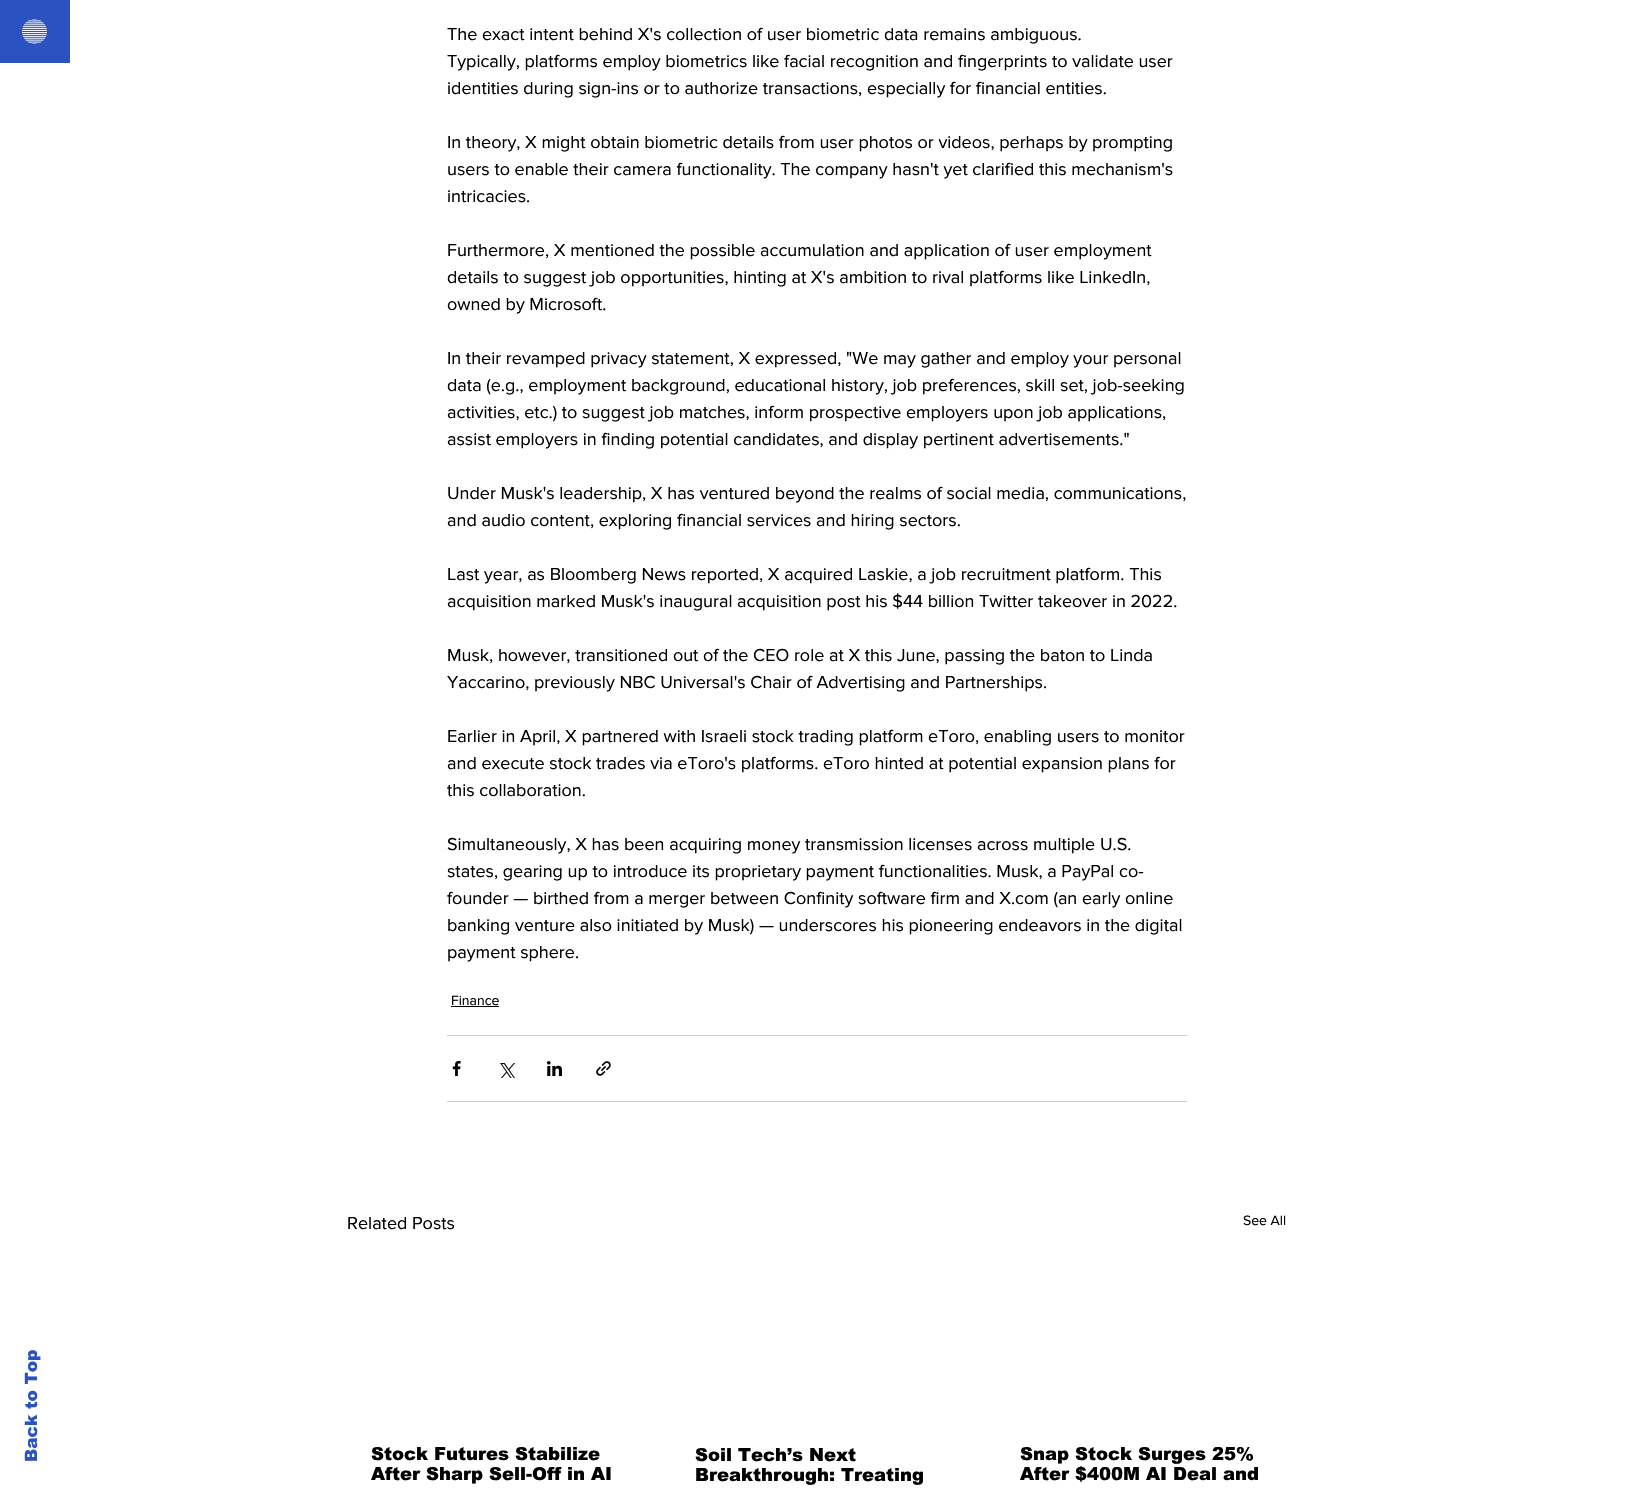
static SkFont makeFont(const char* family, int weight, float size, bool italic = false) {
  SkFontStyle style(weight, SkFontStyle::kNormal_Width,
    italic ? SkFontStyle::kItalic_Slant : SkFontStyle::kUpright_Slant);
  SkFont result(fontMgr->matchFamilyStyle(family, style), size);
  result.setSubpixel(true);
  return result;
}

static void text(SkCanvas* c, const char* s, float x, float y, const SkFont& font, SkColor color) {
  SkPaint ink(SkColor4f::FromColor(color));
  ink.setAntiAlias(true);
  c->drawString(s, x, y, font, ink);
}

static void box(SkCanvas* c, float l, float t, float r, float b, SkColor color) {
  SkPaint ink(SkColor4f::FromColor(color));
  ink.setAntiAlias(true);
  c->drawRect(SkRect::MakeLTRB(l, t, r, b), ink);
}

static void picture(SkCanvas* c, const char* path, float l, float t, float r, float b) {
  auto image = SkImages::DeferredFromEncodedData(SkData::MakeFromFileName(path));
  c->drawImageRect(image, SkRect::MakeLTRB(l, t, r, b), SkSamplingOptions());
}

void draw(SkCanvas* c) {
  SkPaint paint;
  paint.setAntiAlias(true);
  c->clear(0xffffffff);
  box(c, 0, 0, 70, 63, 0xff2a53c1);
  picture(c, "img_01.png", 22, 19, 47, 44);
  SkFont face1 = makeFont("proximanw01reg", 400, 18);
  text(c, "The exact intent behind X's collection of user biometric data remains ambiguous.", 447, 40, face1, 0xff000000);
  text(c, "Typically, platforms employ biometrics like facial recognition and fingerprints to validate user", 447, 67, face1, 0xff000000);
  text(c, "identities during sign-ins or to authorize transactions, especially for financial entities.", 447, 94, face1, 0xff000000);
  text(c, "In theory, X might obtain biometric details from user photos or videos, perhaps by prompting", 447, 148, face1, 0xff000000);
  text(c, "users to enable their camera functionality. The company hasn't yet clarified this mechanism's", 447, 175, face1, 0xff000000);
  text(c, "intricacies.", 447, 202, face1, 0xff000000);
  text(c, "Furthermore, X mentioned the possible accumulation and application of user employment", 447, 256, face1, 0xff000000);
  text(c, "details to suggest job opportunities, hinting at X's ambition to rival platforms like LinkedIn,", 447, 283, face1, 0xff000000);
  text(c, "owned by Microsoft.", 447, 310, face1, 0xff000000);
  text(c, "In their revamped privacy statement, X expressed, \"We may gather and employ your personal", 447, 364, face1, 0xff000000);
  text(c, "data (e.g., employment background, educational history, job preferences, skill set, job-seeking", 447, 391, face1, 0xff000000);
  text(c, "activities, etc.) to suggest job matches, inform prospective employers upon job applications,", 447, 418, face1, 0xff000000);
  text(c, "assist employers in finding potential candidates, and display pertinent advertisements.\"", 447, 445, face1, 0xff000000);
  text(c, "Under Musk's leadership, X has ventured beyond the realms of social media, communications,", 447, 499, face1, 0xff000000);
  text(c, "and audio content, exploring financial services and hiring sectors.", 447, 526, face1, 0xff000000);
  text(c, "Last year, as Bloomberg News reported, X acquired Laskie, a job recruitment platform. This", 447, 580, face1, 0xff000000);
  text(c, "acquisition marked Musk's inaugural acquisition post his $44 billion Twitter takeover in 2022.", 447, 607, face1, 0xff000000);
  text(c, "Musk, however, transitioned out of the CEO role at X this June, passing the baton to Linda", 447, 661, face1, 0xff000000);
  text(c, "Yaccarino, previously NBC Universal's Chair of Advertising and Partnerships.", 447, 688, face1, 0xff000000);
  text(c, "Earlier in April, X partnered with Israeli stock trading platform eToro, enabling users to monitor", 447, 742, face1, 0xff000000);
  text(c, "and execute stock trades via eToro's platforms. eToro hinted at potential expansion plans for", 447, 769, face1, 0xff000000);
  text(c, "this collaboration.", 447, 796, face1, 0xff000000);
  text(c, "Simultaneously, X has been acquiring money transmission licenses across multiple U.S.", 447, 850, face1, 0xff000000);
  text(c, "states, gearing up to introduce its proprietary payment functionalities. Musk, a PayPal co-", 447, 877, face1, 0xff000000);
  text(c, "founder — birthed from a merger between Confinity software firm and X.com (an early online", 447, 904, face1, 0xff000000);
  text(c, "banking venture also initiated by Musk) — underscores his pioneering endeavors in the digital", 447, 931, face1, 0xff000000);
  text(c, "payment sphere.", 447, 958, face1, 0xff000000);
  SkFont face2 = makeFont("proximanw01reg", 400, 14);
  text(c, "Finance", 451, 1005, face2, 0xff000000);
  box(c, 451, 1006, 499, 1007, 0xff000000);
  box(c, 447, 1035, 1187, 1036, 0xffcccccc);
  picture(c, "img_02.png", 452, 1061, 461, 1076);
  picture(c, "img_03.png", 500, 1063, 515, 1078);
  picture(c, "img_04.png", 547, 1061, 562, 1076);
  picture(c, "img_05.png", 596, 1061, 611, 1076);
  box(c, 447, 1101, 1187, 1102, 0xffcccccc);
  text(c, "Related Posts", 347, 1229, face1, 0xff000000);
  text(c, "See All", 1243, 1225, face2, 0xff000000);
  SkFont face3 = makeFont("arial", 900, 18);
  text(c, "Stock Futures Stabilize", 371, 1460, face3, 0xff000000);
  text(c, "After Sharp Sell-Off in AI", 371, 1480, face3, 0xff000000);
  text(c, "Soil Tech’s Next", 695, 1461, face3, 0xff000000);
  text(c, "Breakthrough: Treating", 695, 1481, face3, 0xff000000);
  text(c, "Snap Stock Surges 25%", 1020, 1460, face3, 0xff000000);
  text(c, "After $400M AI Deal and", 1020, 1480, face3, 0xff000000);
  SkFont face4 = makeFont("arial", 900, 17);
  c->save();
  c->rotate(-90, 37, 1462);
  text(c, "Back to Top", 37, 1462, face4, 0xff2a53c1);
  c->restore();
}
